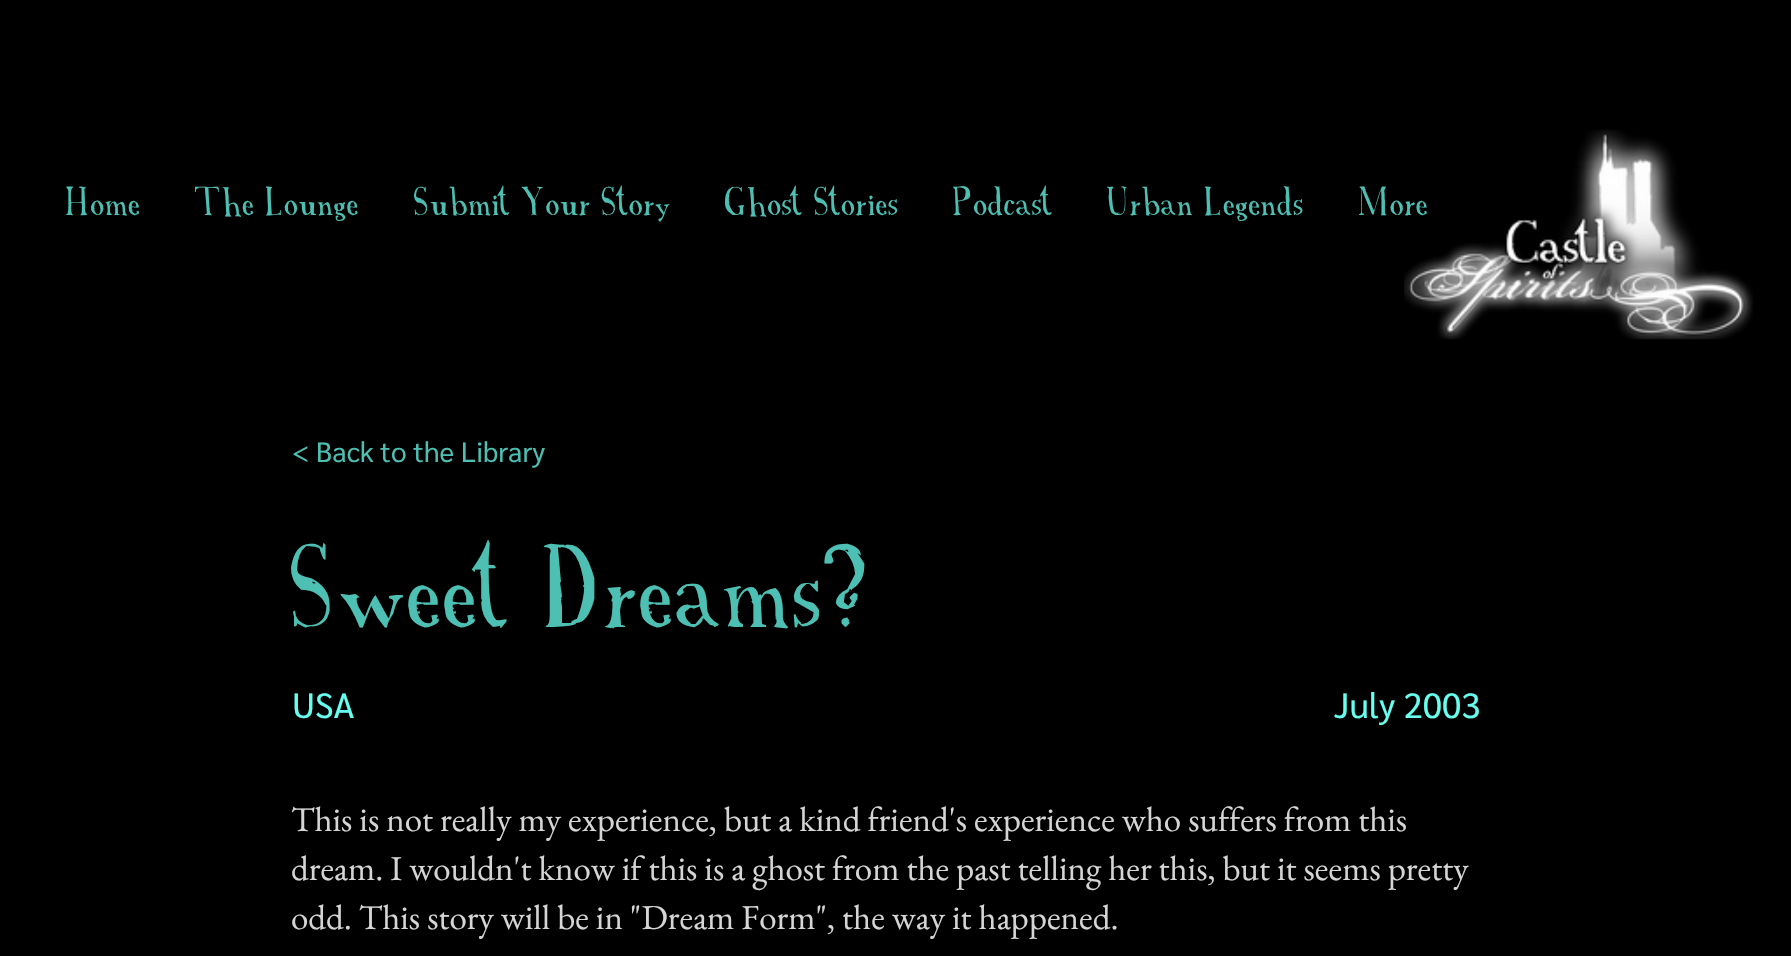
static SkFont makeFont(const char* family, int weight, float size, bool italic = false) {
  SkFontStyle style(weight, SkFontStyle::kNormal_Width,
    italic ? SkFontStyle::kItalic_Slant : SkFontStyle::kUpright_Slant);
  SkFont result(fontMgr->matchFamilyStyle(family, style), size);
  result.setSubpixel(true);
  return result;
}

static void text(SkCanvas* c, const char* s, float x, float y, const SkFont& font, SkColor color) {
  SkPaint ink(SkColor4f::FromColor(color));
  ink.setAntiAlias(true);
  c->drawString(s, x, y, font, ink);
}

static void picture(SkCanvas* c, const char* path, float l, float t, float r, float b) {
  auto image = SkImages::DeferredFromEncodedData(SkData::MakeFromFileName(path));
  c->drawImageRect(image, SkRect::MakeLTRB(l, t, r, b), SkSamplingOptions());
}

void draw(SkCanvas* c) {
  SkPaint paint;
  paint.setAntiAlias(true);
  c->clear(0xff000000);
  SkFont face1 = makeFont("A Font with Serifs", 400, 38.5f);
  text(c, "Home", 66, 215, face1, 0xff4dbfb3);
  text(c, "The Lounge", 195, 215, face1, 0xff4dbfb3);
  text(c, "Submit Your Story", 414, 215, face1, 0xff4dbfb3);
  text(c, "Ghost Stories", 725, 215, face1, 0xff4dbfb3);
  text(c, "Podcast", 953, 215, face1, 0xff4dbfb3);
  text(c, "Urban Legends", 1107, 215, face1, 0xff4dbfb3);
  picture(c, "img_01.png", 1404, 129, 1753, 340);
  text(c, "More", 1359, 215, face1, 0xff4dbfb3);
  SkFont face2 = makeFont("Sarabun", 400, 28);
  text(c, "< Back to the Library", 292, 462, face2, 0xff4dbfb3);
  SkFont face3 = makeFont("A Font with Serifs", 400, 113.75f);
  text(c, "Sweet Dreams?", 291, 627, face3, 0xff4dbfb3);
  SkFont face4 = makeFont("Sarabun", 400, 35);
  text(c, "USA", 292, 718, face4, 0xff67ffef);
  text(c, "July 2003", 1334, 718, face4, 0xff67ffef);
  SkFont face5 = makeFont("EB Garamond", 400, 35);
  text(c, "This is not really my experience, but a kind friend's experience who suffers from this", 291, 831, face5, 0xffd5d5d5);
  text(c, "dream. I wouldn't know if this is a ghost from the past telling her this, but it seems pretty", 291, 880, face5, 0xffd5d5d5);
  text(c, "odd. This story will be in \"Dream Form\", the way it happened.", 291, 929, face5, 0xffd5d5d5);
}
